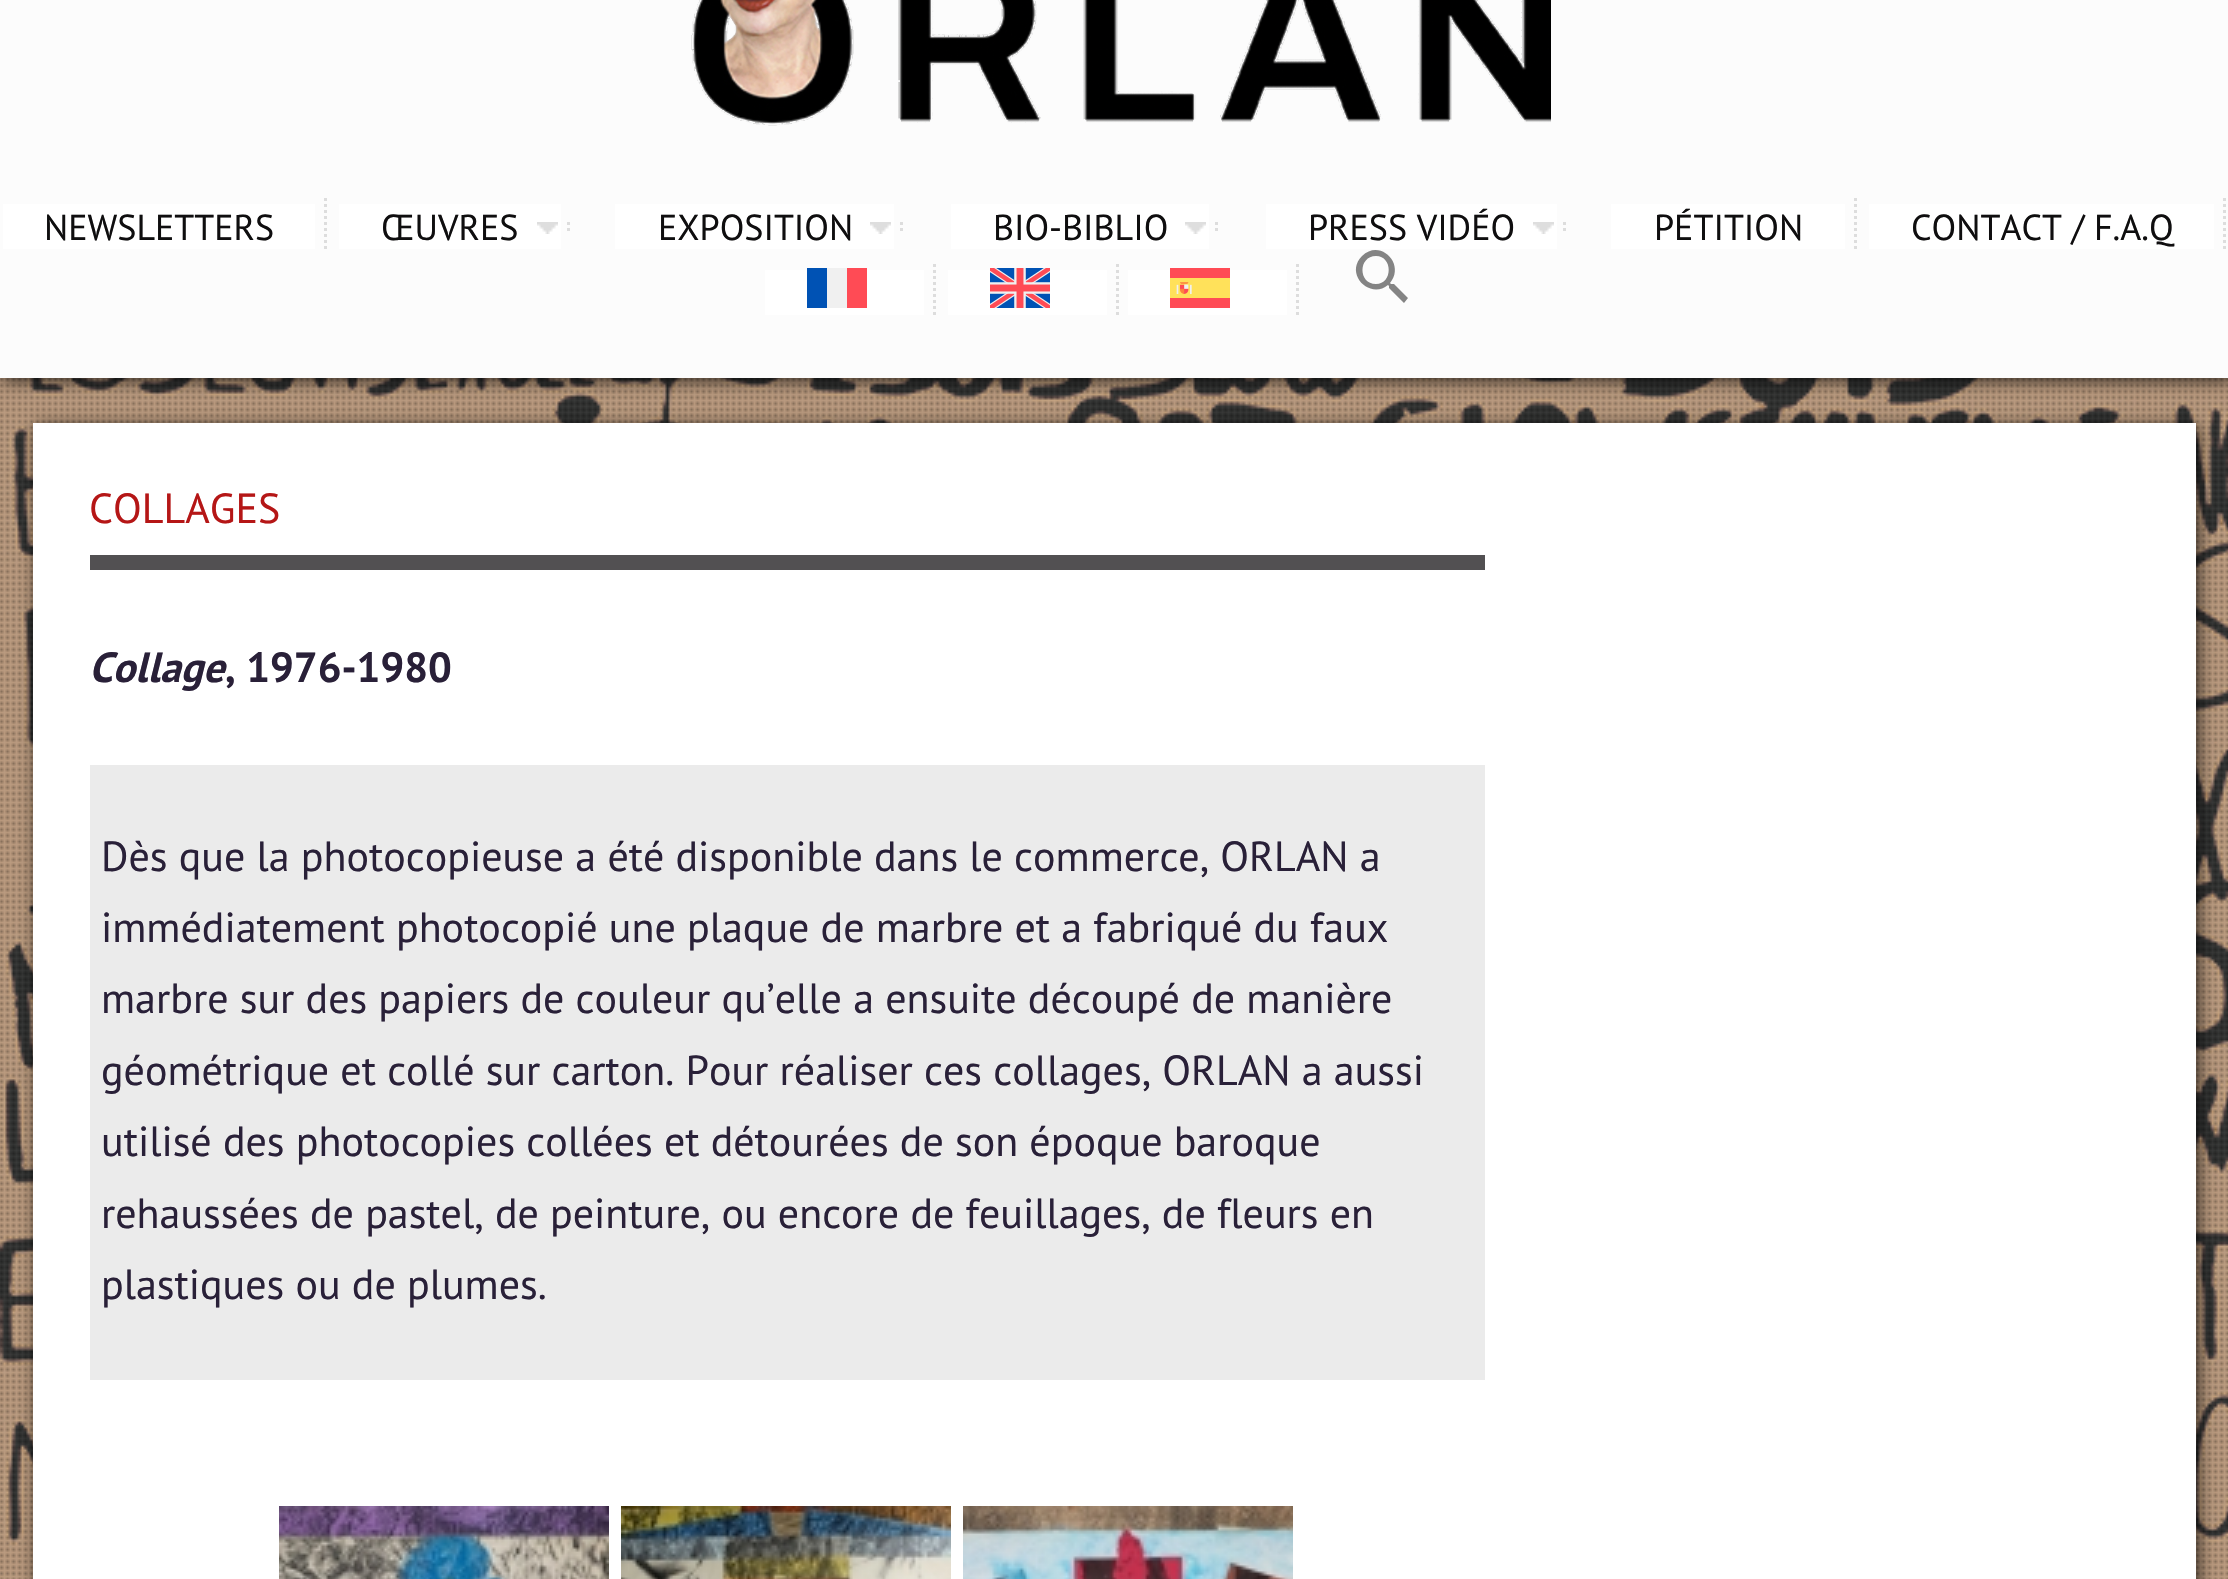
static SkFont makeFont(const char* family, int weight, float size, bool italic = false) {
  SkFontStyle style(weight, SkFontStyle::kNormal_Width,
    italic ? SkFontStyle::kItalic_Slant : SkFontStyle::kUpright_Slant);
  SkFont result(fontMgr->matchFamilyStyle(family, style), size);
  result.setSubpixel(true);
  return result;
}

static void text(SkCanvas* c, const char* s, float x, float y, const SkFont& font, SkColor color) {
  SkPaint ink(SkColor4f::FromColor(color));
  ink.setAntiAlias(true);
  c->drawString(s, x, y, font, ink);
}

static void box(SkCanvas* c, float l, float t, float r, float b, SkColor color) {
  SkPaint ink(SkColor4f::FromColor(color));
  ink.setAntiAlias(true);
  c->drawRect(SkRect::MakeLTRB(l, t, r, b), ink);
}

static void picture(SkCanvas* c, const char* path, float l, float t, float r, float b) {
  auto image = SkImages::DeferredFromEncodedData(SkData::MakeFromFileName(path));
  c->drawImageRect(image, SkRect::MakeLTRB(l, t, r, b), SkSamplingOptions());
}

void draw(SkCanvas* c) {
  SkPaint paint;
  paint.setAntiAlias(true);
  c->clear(0xffffffff);
  picture(c, "img_01.png", 0, 378, 2228, 1579);
  picture(c, "img_10.png", 0, 378, 2228, 1579);
  paint.setColor(0xb3000000);
  paint.setMaskFilter(SkMaskFilter::MakeBlur(kNormal_SkBlurStyle, 7.5f));
  c->drawRect(SkRect::MakeLTRB(3, -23, 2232, 381), paint);
  paint.setMaskFilter(nullptr);
  box(c, 0, 0, 2228, 378, 0xfffcfcfc);
  picture(c, "img_02.png", 691, 0, 1551, 126);
  box(c, 3, 204, 315, 249, 0xffffffff);
  SkFont face1 = makeFont("PT Sans", 400, 36);
  text(c, "NEWSLETTERS", 44, 240, face1, 0xff0f0e0f);
  paint.setStyle(SkPaint::kStroke_Style);
  paint.setStrokeWidth(3);
  paint.setColor(0xffdddddd);
  paint.setPathEffect(SkDashPathEffect::Make({{3, 3}}, 0));
  c->drawPath(SkPathBuilder().moveTo(325.5f, 198).lineTo(325.5f, 252).detach(), paint);
  paint.setPathEffect(nullptr);
  c->drawPath(SkPathBuilder().moveTo(568.5f, 222).lineTo(568.5f, 225).moveTo(568.5f, 228).lineTo(568.5f, 231).detach(), paint);
  box(c, 339, 204, 561, 249, 0xffffffff);
  text(c, "ŒUVRES", 381, 240, face1, 0xff0f0e0f);
  picture(c, "img_03.png", 537, 222, 558, 234);
  c->drawPath(SkPathBuilder().moveTo(901.5f, 222).lineTo(901.5f, 225).moveTo(901.5f, 228).lineTo(901.5f, 231).detach(), paint);
  box(c, 615, 204, 894, 249, 0xffffffff);
  text(c, "EXPOSITION", 658, 240, face1, 0xff0f0e0f);
  picture(c, "img_03.png", 870, 222, 891, 234);
  c->drawPath(SkPathBuilder().moveTo(1216.5f, 222).lineTo(1216.5f, 225).moveTo(1216.5f, 228).lineTo(1216.5f, 231).detach(), paint);
  box(c, 951, 204, 1209, 249, 0xffffffff);
  text(c, "BIO-BIBLIO", 993, 240, face1, 0xff0f0e0f);
  picture(c, "img_04.png", 1185, 222, 1206, 234);
  c->drawPath(SkPathBuilder().moveTo(1564.5f, 222).lineTo(1564.5f, 225).moveTo(1564.5f, 228).lineTo(1564.5f, 231).detach(), paint);
  box(c, 1266, 204, 1557, 249, 0xffffffff);
  text(c, "PRESS VIDÉO", 1308, 240, face1, 0xff0f0e0f);
  picture(c, "img_03.png", 1533, 222, 1554, 234);
  box(c, 1611, 204, 1845, 249, 0xffffffff);
  text(c, "PÉTITION", 1654, 240, face1, 0xff0f0e0f);
  paint.setPathEffect(SkDashPathEffect::Make({{3, 3}}, 0));
  c->drawPath(SkPathBuilder().moveTo(1855.5f, 198).lineTo(1855.5f, 252).detach(), paint);
  paint.setPathEffect(nullptr);
  box(c, 1869, 204, 2214, 249, 0xffffffff);
  text(c, "CONTACT / F.A.Q", 1911, 240, face1, 0xff0f0e0f);
  paint.setPathEffect(SkDashPathEffect::Make({{3, 3}}, 0));
  c->drawPath(SkPathBuilder().moveTo(2224.5f, 198).lineTo(2224.5f, 252).detach(), paint);
  paint.setPathEffect(nullptr);
  box(c, 765, 270, 924, 315, 0xffffffff);
  box(c, 807, 268, 827, 308, 0xff0052b4);
  box(c, 827, 268, 847, 308, 0xfff0f0f0);
  box(c, 847, 268, 867, 308, 0xffff4b55);
  paint.setPathEffect(SkDashPathEffect::Make({{3, 3}}, 0));
  c->drawPath(SkPathBuilder().moveTo(934.5f, 264).lineTo(934.5f, 318).detach(), paint);
  paint.setPathEffect(nullptr);
  box(c, 948, 270, 1107, 315, 0xffffffff);
  picture(c, "img_05.png", 990, 268, 1050, 308);
  paint.setPathEffect(SkDashPathEffect::Make({{3, 3}}, 0));
  c->drawPath(SkPathBuilder().moveTo(1117.5f, 264).lineTo(1117.5f, 318).detach(), paint);
  paint.setPathEffect(nullptr);
  box(c, 1128, 270, 1287, 315, 0xffffffff);
  picture(c, "img_06.png", 1170, 268, 1230, 308);
  paint.setPathEffect(SkDashPathEffect::Make({{3, 3}}, 0));
  c->drawPath(SkPathBuilder().moveTo(1297.5f, 264).lineTo(1297.5f, 318).detach(), paint);
  paint.setPathEffect(nullptr);
  paint.setStyle(SkPaint::kFill_Style);
  paint.setColor(0xff848484);
  c->drawPath(SkPathBuilder().moveTo(1394, 284).lineTo(1391, 284).lineTo(1390, 283).cubicTo(1406, 264, 1380, 238, 1362, 256).cubicTo(1344, 274, 1370, 300, 1388, 285).lineTo(1389, 286).lineTo(1389, 288).lineTo(1404, 303).lineTo(1408, 298).close().moveTo(1376, 284).cubicTo(1358, 284, 1358, 256, 1376, 256).cubicTo(1393, 256, 1393, 284, 1376, 284).close().detach(), paint);
  paint.setColor(0xb3000000);
  paint.setMaskFilter(SkMaskFilter::MakeBlur(kNormal_SkBlurStyle, 7.5f));
  c->drawRect(SkRect::MakeLTRB(36, 426, 2199, 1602), paint);
  paint.setMaskFilter(nullptr);
  box(c, 33, 423, 2196, 1579, 0xffffffff);
  box(c, 90, 555, 1485, 570, 0xff525052);
  SkFont face2 = makeFont("PT Sans", 400, 42);
  text(c, "COLLAGES", 89, 523, face2, 0xffb51616);
  SkFont face3 = makeFont("PT Sans", 700, 42, true);
  text(c, "Collage", 89, 682, face3, 0xff292038);
  SkFont face4 = makeFont("PT Sans", 700, 42);
  text(c, ", 1976-1980", 225, 682, face4, 0xff292038);
  box(c, 90, 765, 1485, 1380, 0xffebebeb);
  text(c, "Dès que la photocopieuse a été disponible dans le commerce, ORLAN a", 101, 871, face2, 0xff292038);
  text(c, "immédiatement photocopié une plaque de marbre et a fabriqué du faux", 101, 942, face2, 0xff292038);
  text(c, "marbre sur des papiers de couleur qu’elle a ensuite découpé de manière", 101, 1013, face2, 0xff292038);
  text(c, "géométrique et collé sur carton. Pour réaliser ces collages, ORLAN a aussi", 101, 1085, face2, 0xff292038);
  text(c, "utilisé des photocopies collées et détourées de son époque baroque", 101, 1156, face2, 0xff292038);
  text(c, "rehaussées de pastel, de peinture, ou encore de feuillages, de fleurs en", 101, 1228, face2, 0xff292038);
  text(c, "plastiques ou de plumes.", 101, 1299, face2, 0xff292038);
  picture(c, "img_07.png", 279, 1506, 609, 1579);
  picture(c, "img_08.png", 621, 1506, 951, 1579);
  picture(c, "img_09.png", 963, 1506, 1293, 1579);
}
